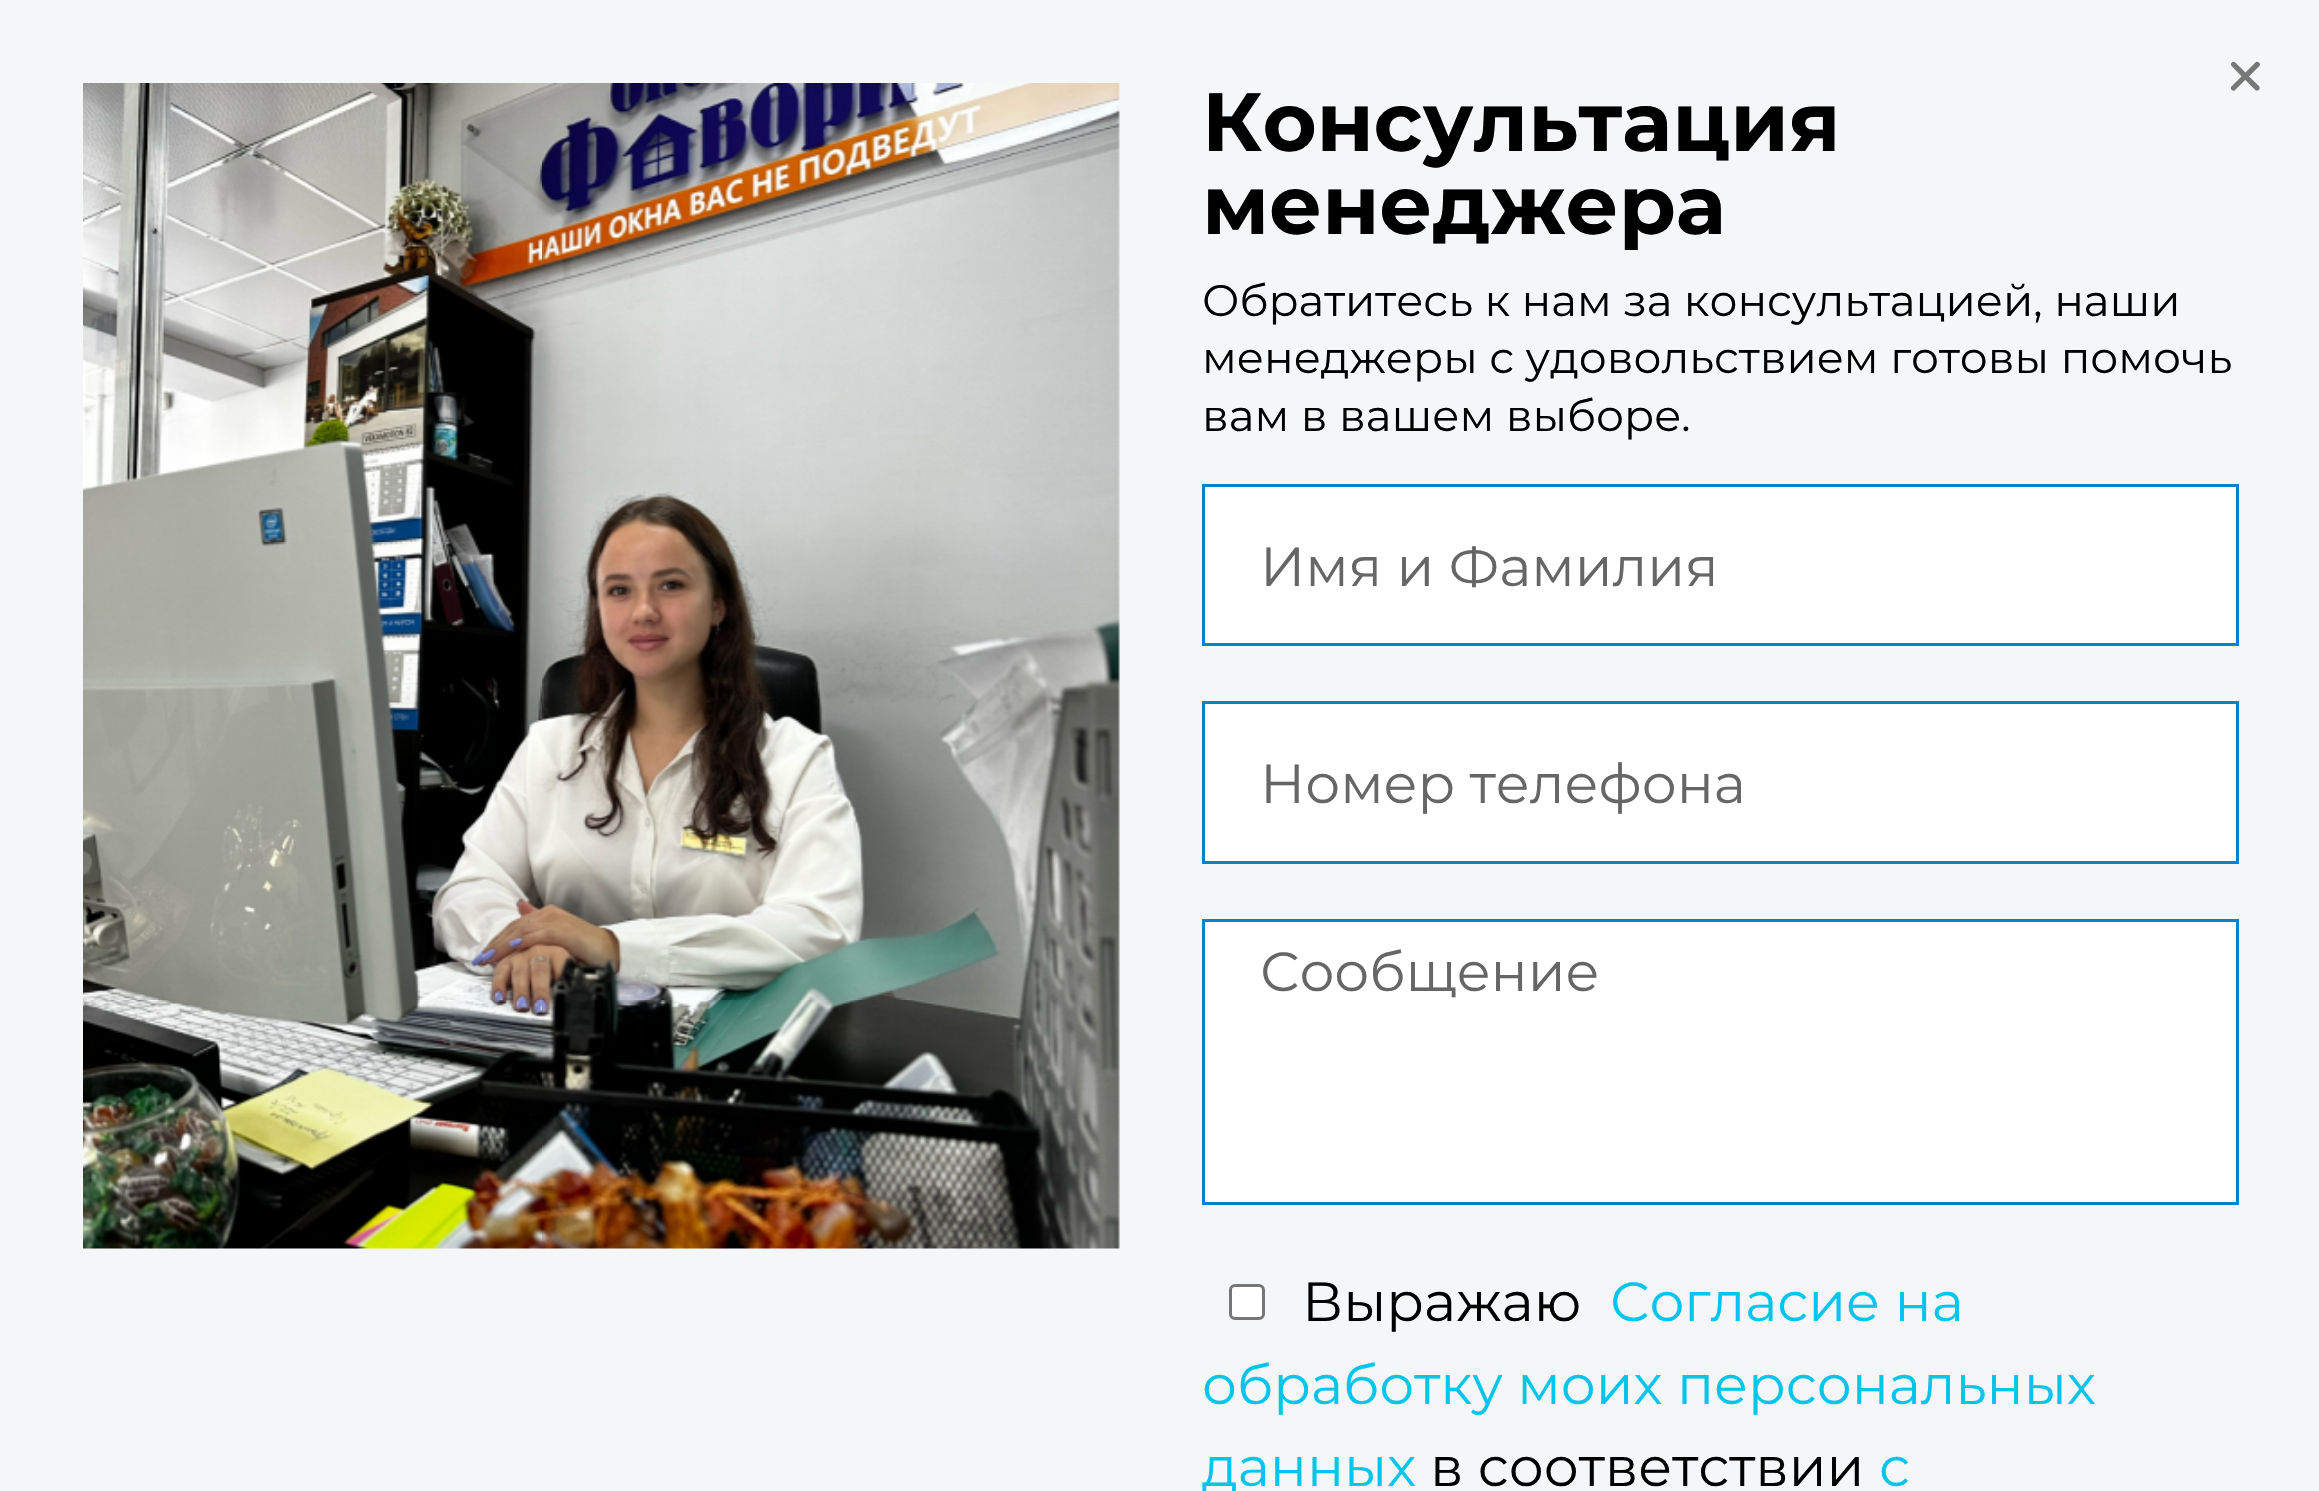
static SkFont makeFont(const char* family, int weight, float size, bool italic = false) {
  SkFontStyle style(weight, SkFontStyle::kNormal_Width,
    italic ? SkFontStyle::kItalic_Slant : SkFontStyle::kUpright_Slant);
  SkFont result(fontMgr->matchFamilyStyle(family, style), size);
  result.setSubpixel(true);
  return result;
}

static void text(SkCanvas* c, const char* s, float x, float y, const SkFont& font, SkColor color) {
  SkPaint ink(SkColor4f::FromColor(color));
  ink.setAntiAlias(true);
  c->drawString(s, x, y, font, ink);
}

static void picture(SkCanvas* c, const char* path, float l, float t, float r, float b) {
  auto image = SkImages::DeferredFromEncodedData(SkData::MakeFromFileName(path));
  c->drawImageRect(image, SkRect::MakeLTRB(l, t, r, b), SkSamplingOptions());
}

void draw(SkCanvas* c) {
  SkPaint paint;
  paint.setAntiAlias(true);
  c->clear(0xfff5f6f7);
  picture(c, "img_01.png", 2230, 61, 2260, 91);
  picture(c, "img_02.png", 83, 83, 1120, 1249);
  SkFont face1 = makeFont("Montserrat", 700, 82.5f);
  text(c, "Консультация", 1202, 151, face1, 0xff000000);
  text(c, "менеджера", 1202, 234, face1, 0xff000000);
  SkFont face2 = makeFont("Montserrat", 400, 44);
  text(c, "Обратитесь к нам за консультацией, наши", 1202, 316, face2, 0xff000000);
  text(c, "менеджеры с удовольствием готовы помочь", 1202, 373, face2, 0xff000000);
  text(c, "вам в вашем выборе.", 1202, 431, face2, 0xff000000);
  paint.setColor(0xffffffff);
  c->drawRect(SkRect::MakeLTRB(1203.5f, 485.5f, 2237.5f, 644.5f), paint);
  paint.setStyle(SkPaint::kStroke_Style);
  paint.setStrokeWidth(3);
  paint.setColor(0xff0183cb);
  c->drawRect(SkRect::MakeLTRB(1203.5f, 485.5f, 2237.5f, 644.5f), paint);
  SkFont face3 = makeFont("Montserrat", 400, 55);
  text(c, "Имя и Фамилия", 1260, 586, face3, 0xff666666);
  paint.setStyle(SkPaint::kFill_Style);
  paint.setColor(0xffffffff);
  c->drawRect(SkRect::MakeLTRB(1203.5f, 702.5f, 2237.5f, 862.5f), paint);
  paint.setStyle(SkPaint::kStroke_Style);
  paint.setColor(0xff0183cb);
  c->drawRect(SkRect::MakeLTRB(1203.5f, 702.5f, 2237.5f, 862.5f), paint);
  text(c, "Номер телефона", 1260, 803, face3, 0xff666666);
  paint.setStyle(SkPaint::kFill_Style);
  paint.setColor(0xffffffff);
  c->drawRect(SkRect::MakeLTRB(1203.5f, 920.5f, 2237.5f, 1203.5f), paint);
  paint.setStyle(SkPaint::kStroke_Style);
  paint.setColor(0xff0183cb);
  c->drawRect(SkRect::MakeLTRB(1203.5f, 920.5f, 2237.5f, 1203.5f), paint);
  text(c, "Сообщение", 1260, 991, face3, 0xff666666);
  paint.setStyle(SkPaint::kFill_Style);
  paint.setColor(0xffffffff);
  c->drawRoundRect(SkRect::MakeLTRB(1230.5f, 1285.5f, 1263.5f, 1318.5f), 4.5f, 4.5f, paint);
  paint.setStyle(SkPaint::kStroke_Style);
  paint.setColor(0xff767676);
  c->drawRoundRect(SkRect::MakeLTRB(1230.5f, 1285.5f, 1263.5f, 1318.5f), 4.5f, 4.5f, paint);
  text(c, "Выражаю", 1302, 1321, face3, 0xff000000);
  text(c, "Согласие на", 1610, 1321, face3, 0xff03c4eb);
  text(c, "обработку моих персональных", 1202, 1404, face3, 0xff03c4eb);
  text(c, "данных", 1202, 1486, face3, 0xff03c4eb);
  text(c, "в соответствии", 1430, 1486, face3, 0xff000000);
  text(c, "с", 1879, 1486, face3, 0xff03c4eb);
}
